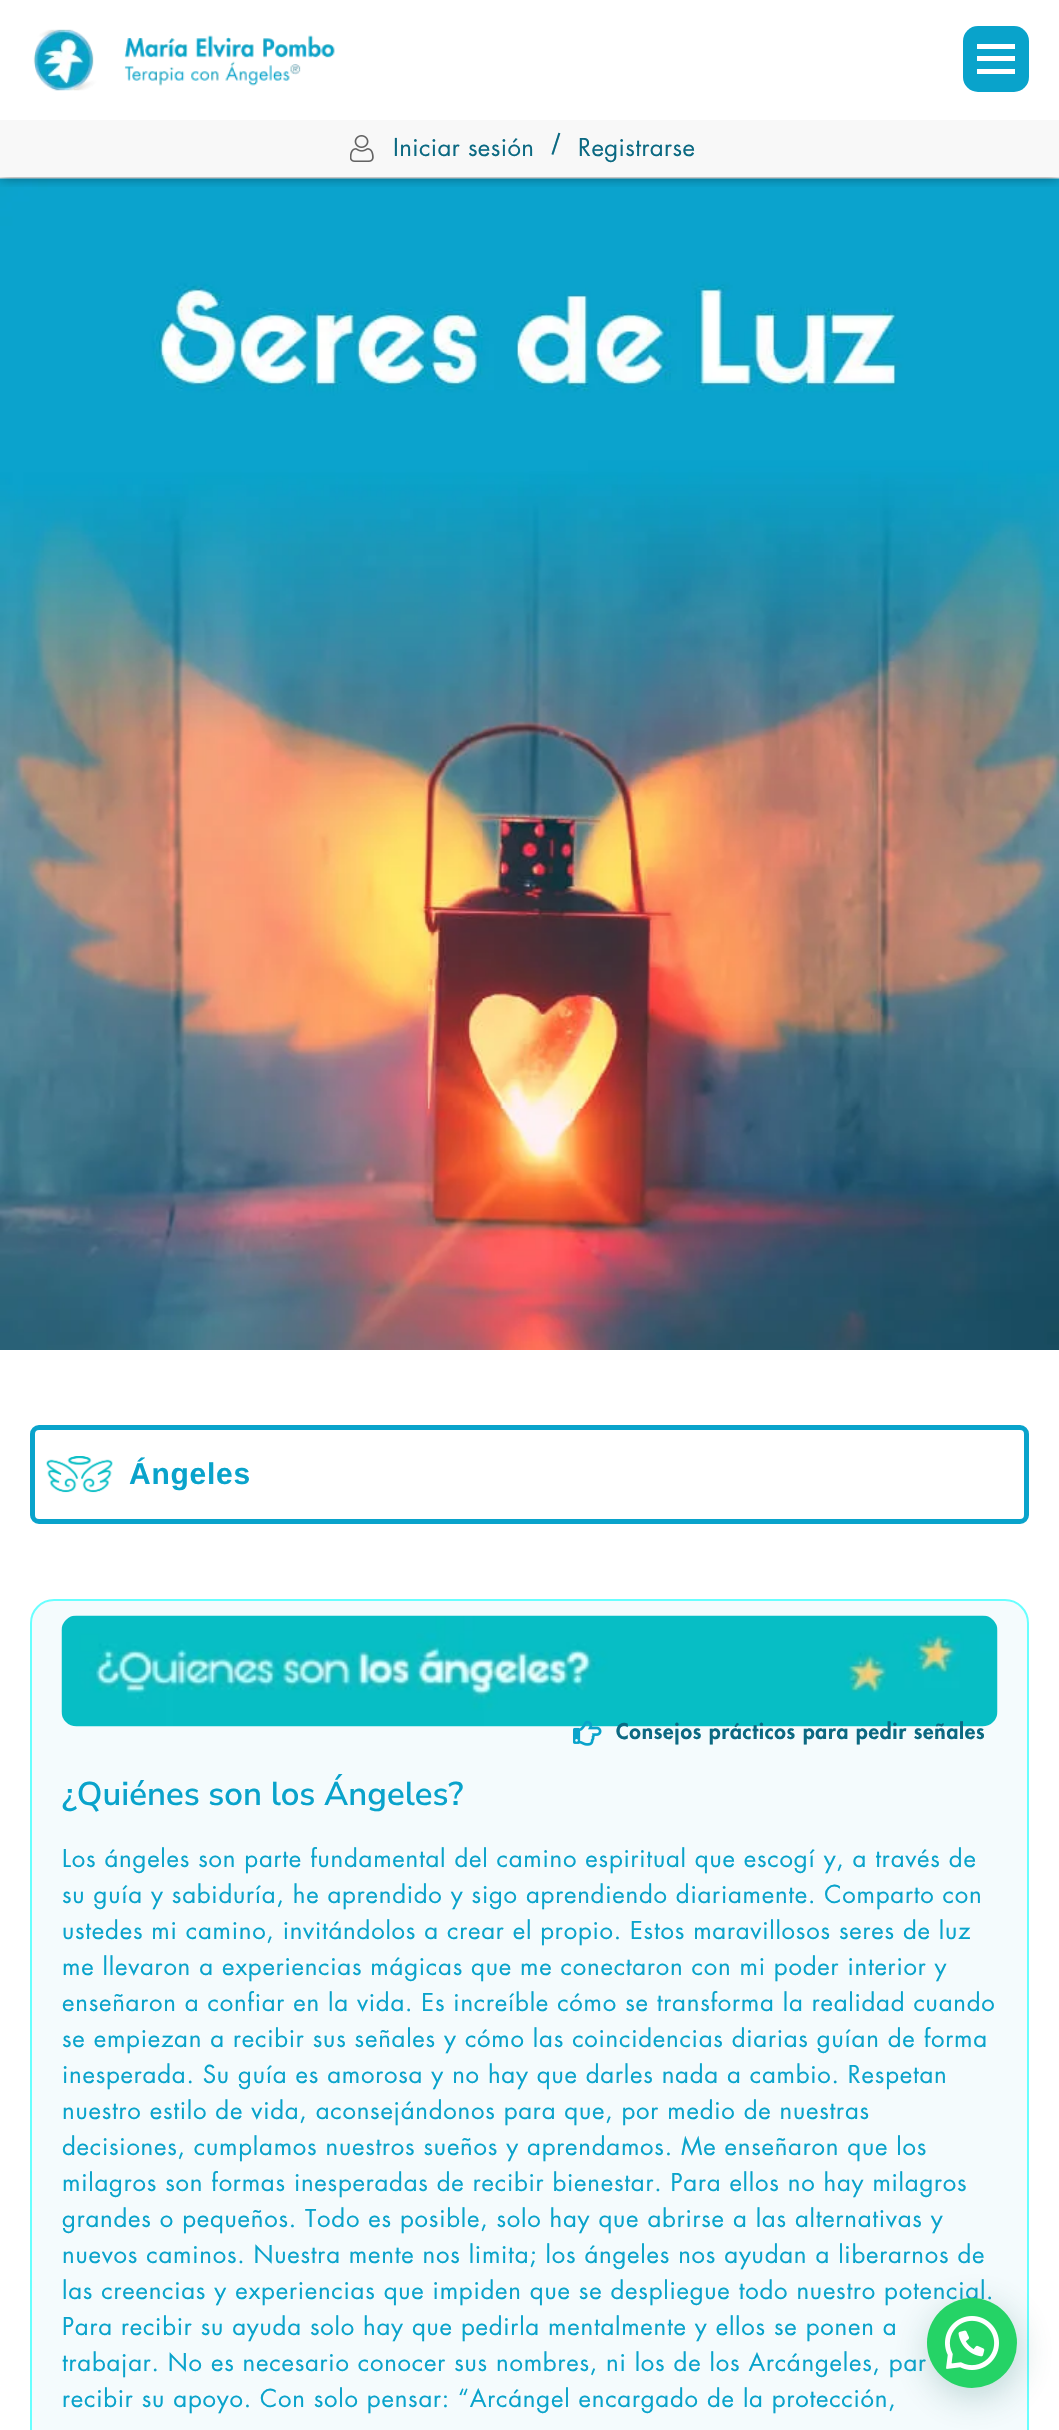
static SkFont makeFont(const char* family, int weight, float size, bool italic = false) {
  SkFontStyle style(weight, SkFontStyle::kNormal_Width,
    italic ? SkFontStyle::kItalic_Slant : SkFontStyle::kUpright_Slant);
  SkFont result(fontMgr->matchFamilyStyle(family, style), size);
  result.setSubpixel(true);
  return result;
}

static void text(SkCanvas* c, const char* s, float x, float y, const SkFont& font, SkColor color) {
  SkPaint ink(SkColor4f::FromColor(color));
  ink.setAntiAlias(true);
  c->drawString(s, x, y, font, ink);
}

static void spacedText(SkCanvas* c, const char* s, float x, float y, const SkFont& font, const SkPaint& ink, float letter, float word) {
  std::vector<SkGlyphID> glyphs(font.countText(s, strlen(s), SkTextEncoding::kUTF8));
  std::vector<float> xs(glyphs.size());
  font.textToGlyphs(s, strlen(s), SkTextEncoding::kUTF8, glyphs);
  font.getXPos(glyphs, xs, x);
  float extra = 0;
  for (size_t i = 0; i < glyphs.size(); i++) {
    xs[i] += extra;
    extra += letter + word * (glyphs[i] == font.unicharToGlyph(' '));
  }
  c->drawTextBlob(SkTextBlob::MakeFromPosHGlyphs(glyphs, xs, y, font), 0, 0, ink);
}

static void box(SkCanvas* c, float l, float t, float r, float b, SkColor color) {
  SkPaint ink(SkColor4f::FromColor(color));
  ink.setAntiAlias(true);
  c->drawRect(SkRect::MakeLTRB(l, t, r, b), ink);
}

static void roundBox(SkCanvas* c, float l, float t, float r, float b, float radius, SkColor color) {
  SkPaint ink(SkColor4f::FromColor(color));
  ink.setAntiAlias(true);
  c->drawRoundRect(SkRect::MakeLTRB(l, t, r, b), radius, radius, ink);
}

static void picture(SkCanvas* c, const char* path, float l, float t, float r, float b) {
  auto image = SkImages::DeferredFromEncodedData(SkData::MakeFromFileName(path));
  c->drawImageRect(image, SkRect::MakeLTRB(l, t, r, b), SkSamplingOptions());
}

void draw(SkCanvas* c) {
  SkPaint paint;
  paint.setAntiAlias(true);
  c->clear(0xffffffff);
  picture(c, "img_03.png", 0, 178, 1059, 1350);
  c->save();
  c->clipRect(SkRect::MakeLTRB(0, 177, 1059, 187));
  paint.setColor(0x80000000);
  paint.setMaskFilter(SkMaskFilter::MakeBlur(kNormal_SkBlurStyle, 6));
  c->drawRect(SkRect::MakeLTRB(0, 0, 1059, 177), paint);
  paint.setMaskFilter(nullptr);
  c->restore();
  picture(c, "img_01.png", 33, 29, 335, 91);
  roundBox(c, 963, 26, 1029, 92, 15, 0xff09a3cb);
  box(c, 977, 44, 1015, 49, 0xffffffff);
  box(c, 977, 56, 1015, 61, 0xffffffff);
  box(c, 977, 69, 1015, 74, 0xffffffff);
  box(c, 0, 120, 1059, 177, 0xfff8f8f8);
  picture(c, "img_02.png", 350, 135, 374, 162);
  SkFont face1 = makeFont("Futura", 400, 24);
  paint.setColor(0xff0b6982);
  spacedText(c, "Iniciar sesión", 393, 156, face1, paint, 0.4f, 0);
  SkFont face2 = makeFont("Nunito Sans", 500, 27);
  text(c, "/", 552, 153, face2, 0xff0b6982);
  spacedText(c, "Registrarse", 578, 156, face1, paint, 0.4f, 0);
  paint.setStyle(SkPaint::kStroke_Style);
  paint.setStrokeWidth(5);
  paint.setColor(0xff09a3cb);
  c->drawRoundRect(SkRect::MakeLTRB(32.5f, 1427.5f, 1026.5f, 1521.5f), 6.5f, 6.5f, paint);
  picture(c, "img_04.png", 46, 1456, 113, 1493);
  SkFont face3 = makeFont("Liberation Sans", 700, 30);
  paint.setStyle(SkPaint::kFill_Style);
  spacedText(c, "Ángeles", 129, 1484, face3, paint, 0.75f, 0);
  paint.setColor(0xfff4fbfd);
  c->drawRoundRect(SkRect::MakeLTRB(31, 1600, 1028, 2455), 23, 23, paint);
  paint.setStyle(SkPaint::kStroke_Style);
  paint.setStrokeWidth(2);
  paint.setColor(0xff68ffff);
  c->drawRoundRect(SkRect::MakeLTRB(31, 1600, 1028, 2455), 23, 23, paint);
  picture(c, "img_05.png", 61, 1615, 998, 1727);
  picture(c, "img_06.png", 573, 1720, 602, 1746);
  SkFont face4 = makeFont("Futura", 900, 21);
  paint.setStyle(SkPaint::kFill_Style);
  paint.setColor(0xff0b6982);
  spacedText(c, "Consejos prácticos para pedir señales", 616, 1739, face4, paint, 0.75f, 0);
  SkFont face5 = makeFont("Nunito Sans", 600, 33);
  text(c, "¿Quiénes son los Ángeles?", 62, 1805, face5, 0xff09a3cb);
  paint.setColor(0xff09a3cb);
  spacedText(c, "Los ángeles son parte fundamental del camino espiritual que escogí y, a través de", 62, 1867, face1, paint, 0.75f, 0);
  spacedText(c, "su guía y sabiduría, he aprendido y sigo aprendiendo diariamente. Comparto con", 62, 1903, face1, paint, 0.75f, 0);
  spacedText(c, "ustedes mi camino, invitándolos a crear el propio. Estos maravillosos seres de luz", 62, 1939, face1, paint, 0.75f, 0);
  spacedText(c, "me llevaron a experiencias mágicas que me conectaron con mi poder interior y", 62, 1975, face1, paint, 0.75f, 0);
  spacedText(c, "enseñaron a confiar en la vida. Es increíble cómo se transforma la realidad cuando", 62, 2011, face1, paint, 0.75f, 0);
  spacedText(c, "se empiezan a recibir sus señales y cómo las coincidencias diarias guían de forma", 62, 2047, face1, paint, 0.75f, 0);
  spacedText(c, "inesperada. Su guía es amorosa y no hay que darles nada a cambio. Respetan", 62, 2083, face1, paint, 0.75f, 0);
  spacedText(c, "nuestro estilo de vida, aconsejándonos para que, por medio de nuestras", 62, 2119, face1, paint, 0.75f, 0);
  spacedText(c, "decisiones, cumplamos nuestros sueños y aprendamos. Me enseñaron que los", 62, 2155, face1, paint, 0.75f, 0);
  spacedText(c, "milagros son formas inesperadas de recibir bienestar. Para ellos no hay milagros", 62, 2191, face1, paint, 0.75f, 0);
  spacedText(c, "grandes o pequeños. Todo es posible, solo hay que abrirse a las alternativas y", 62, 2227, face1, paint, 0.75f, 0);
  spacedText(c, "nuevos caminos. Nuestra mente nos limita; los ángeles nos ayudan a liberarnos de", 62, 2263, face1, paint, 0.75f, 0);
  spacedText(c, "las creencias y experiencias que impiden que se despliegue todo nuestro potencial.", 62, 2299, face1, paint, 0.75f, 0);
  spacedText(c, "Para recibir su ayuda solo hay que pedirla mentalmente y ellos se ponen a", 62, 2335, face1, paint, 0.75f, 0);
  spacedText(c, "trabajar. No es necesario conocer sus nombres, ni los de los Arcángeles, par", 62, 2371, face1, paint, 0.75f, 0);
  spacedText(c, "recibir su apoyo. Con solo pensar: “Arcángel encargado de la protección,", 62, 2407, face1, paint, 0.75f, 0);
  paint.setColor(0x3d075e54);
  paint.setMaskFilter(SkMaskFilter::MakeBlur(kNormal_SkBlurStyle, 18));
  c->drawRoundRect(SkRect::MakeLTRB(929, 2307, 1019, 2397), 45, 45, paint);
  paint.setMaskFilter(nullptr);
  paint.setColor(0xff25d366);
  c->drawCircle(972, 2343, 45, paint);
  picture(c, "img_07.png", 945, 2316, 999, 2370);
}
